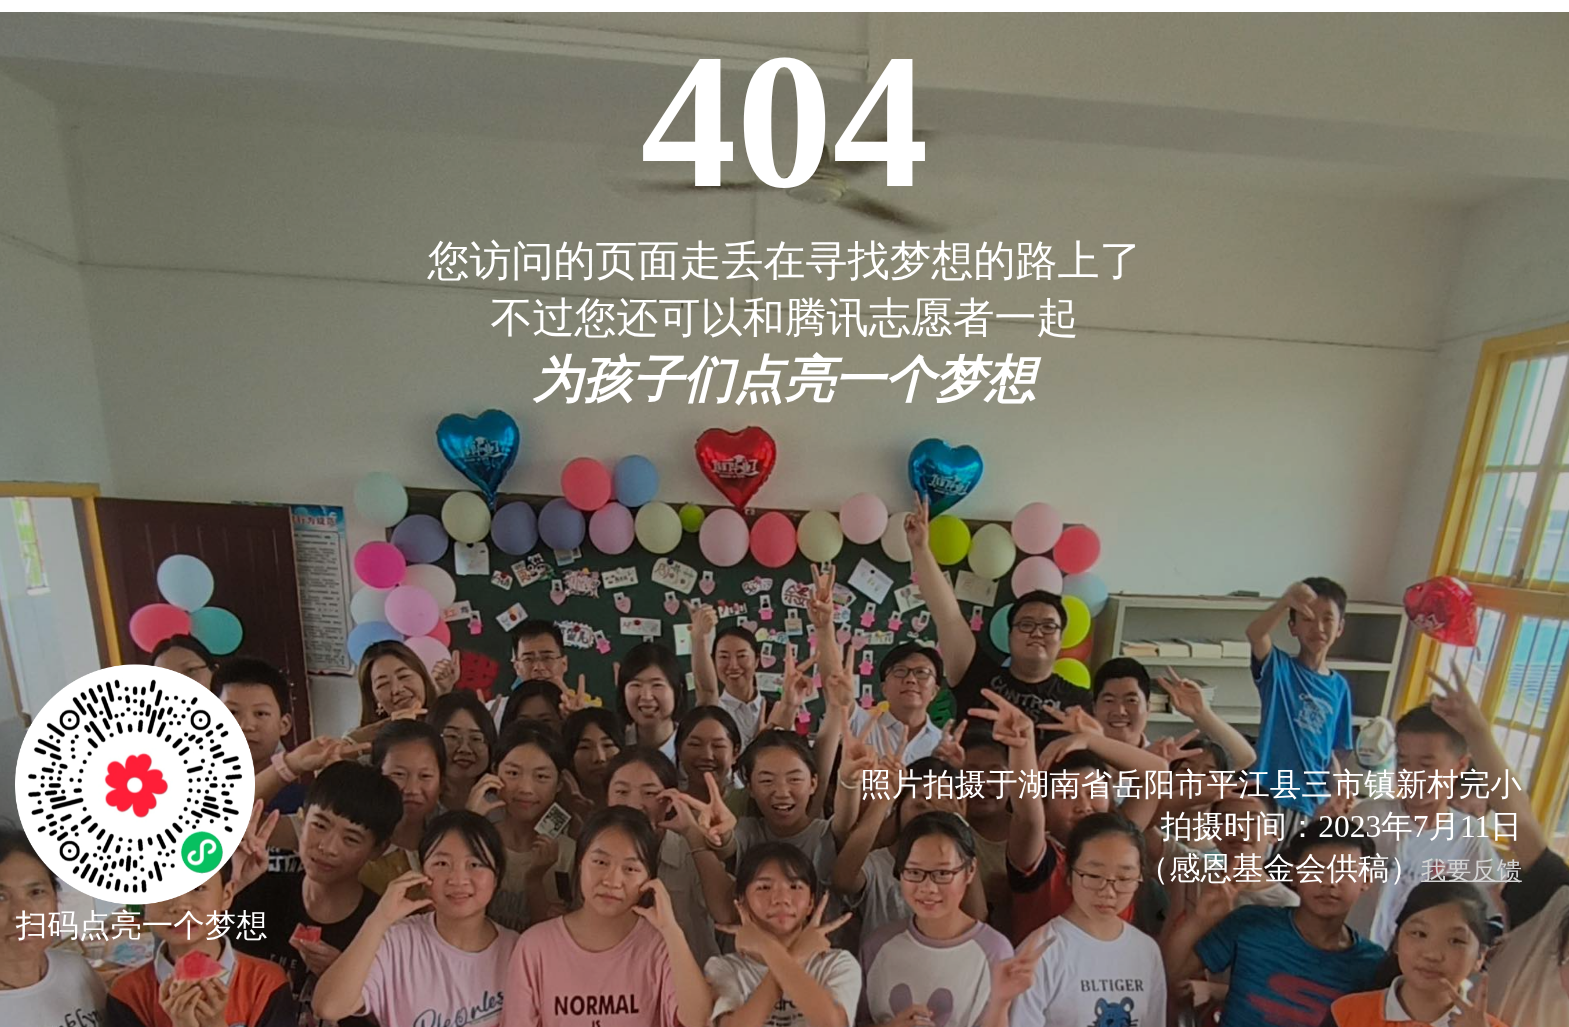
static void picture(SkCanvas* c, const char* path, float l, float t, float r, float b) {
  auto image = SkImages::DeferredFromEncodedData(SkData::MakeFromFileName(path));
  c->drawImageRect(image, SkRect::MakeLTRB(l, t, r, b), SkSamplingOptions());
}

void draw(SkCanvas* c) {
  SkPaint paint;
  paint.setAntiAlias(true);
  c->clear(0xffffffff);
  picture(c, "img_01.png", 0, 12, 1569, 1027);
}
